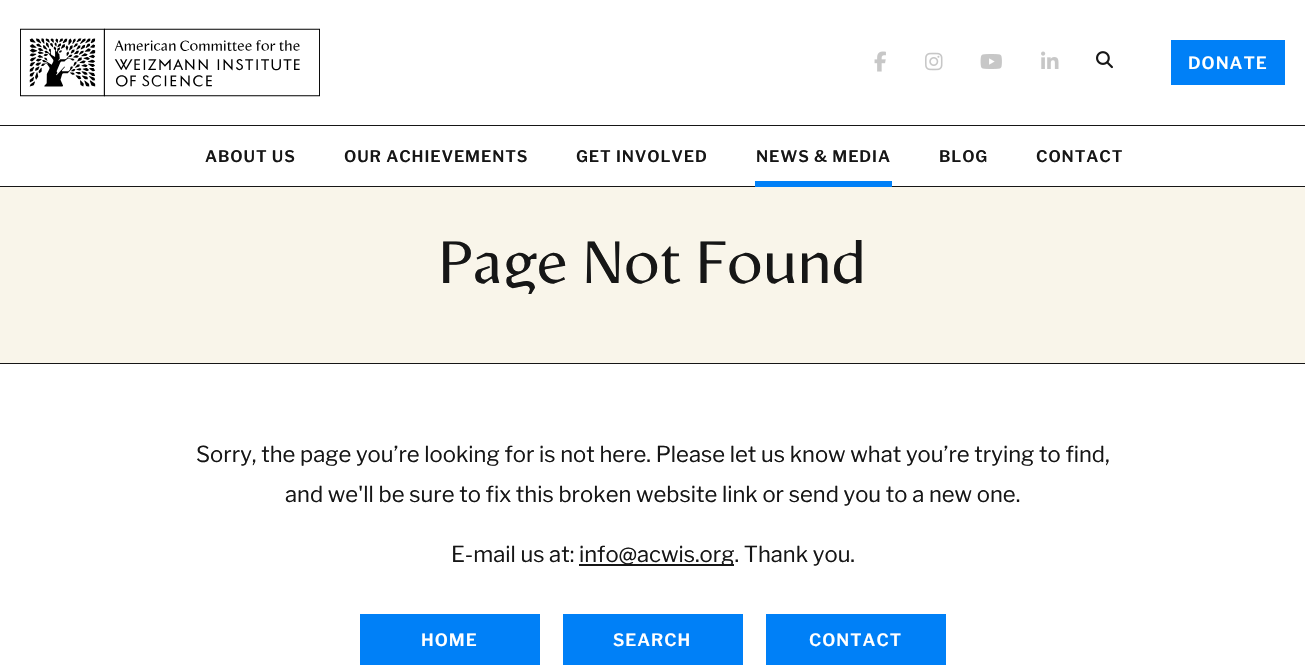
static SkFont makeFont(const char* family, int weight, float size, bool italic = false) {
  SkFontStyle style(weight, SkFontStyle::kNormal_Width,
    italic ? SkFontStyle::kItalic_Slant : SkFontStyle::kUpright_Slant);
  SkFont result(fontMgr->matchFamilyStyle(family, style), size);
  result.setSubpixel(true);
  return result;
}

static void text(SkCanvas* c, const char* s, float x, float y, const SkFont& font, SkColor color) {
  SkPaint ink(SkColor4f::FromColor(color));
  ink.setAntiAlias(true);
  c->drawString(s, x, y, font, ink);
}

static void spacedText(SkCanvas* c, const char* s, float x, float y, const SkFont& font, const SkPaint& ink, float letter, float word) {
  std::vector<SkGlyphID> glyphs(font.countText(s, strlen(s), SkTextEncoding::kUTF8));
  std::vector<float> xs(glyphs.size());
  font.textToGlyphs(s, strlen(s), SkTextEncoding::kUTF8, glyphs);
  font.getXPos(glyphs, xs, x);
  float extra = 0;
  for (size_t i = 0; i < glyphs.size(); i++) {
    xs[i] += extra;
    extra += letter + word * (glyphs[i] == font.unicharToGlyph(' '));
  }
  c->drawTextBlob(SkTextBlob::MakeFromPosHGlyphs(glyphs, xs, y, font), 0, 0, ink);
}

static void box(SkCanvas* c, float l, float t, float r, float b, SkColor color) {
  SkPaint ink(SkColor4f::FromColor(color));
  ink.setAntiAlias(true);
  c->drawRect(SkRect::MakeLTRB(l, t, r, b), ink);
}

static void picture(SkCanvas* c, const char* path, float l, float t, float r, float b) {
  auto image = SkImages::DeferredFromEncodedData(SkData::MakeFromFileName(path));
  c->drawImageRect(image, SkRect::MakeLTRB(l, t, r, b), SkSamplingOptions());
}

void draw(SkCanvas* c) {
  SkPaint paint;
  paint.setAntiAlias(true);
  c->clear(0xffffffff);
  box(c, 0, 125, 1305, 126, 0xff161616);
  picture(c, "img_01.png", 20, 28, 320, 97);
  picture(c, "img_02.png", 874, 51, 886, 72);
  picture(c, "img_03.png", 925, 52, 943, 71);
  picture(c, "img_04.png", 980, 54, 1002, 69);
  picture(c, "img_05.png", 1041, 51, 1059, 69);
  picture(c, "img_06.png", 1096, 51, 1113, 69);
  box(c, 1171, 40, 1285, 85, 0xff0080f7);
  SkFont face1 = makeFont("Libre Franklin", 600, 17);
  paint.setColor(0xffffffff);
  spacedText(c, "DONATE", 1188, 69, face1, paint, 1, 0);
  SkFont face2 = makeFont("Libre Franklin", 600, 16);
  paint.setColor(0xff161616);
  spacedText(c, "ABOUT US", 205, 162, face2, paint, 0.9f, 0);
  spacedText(c, "OUR ACHIEVEMENTS", 344, 162, face2, paint, 0.9f, 0);
  spacedText(c, "GET INVOLVED", 576, 162, face2, paint, 0.9f, 0);
  spacedText(c, "NEWS & MEDIA", 756, 162, face2, paint, 0.9f, 0);
  box(c, 0, 186, 1305, 187, 0xff161616);
  box(c, 755, 181, 892, 187, 0xff0080f7);
  spacedText(c, "BLOG", 939, 162, face2, paint, 0.9f, 0);
  spacedText(c, "CONTACT", 1036, 162, face2, paint, 0.9f, 0);
  box(c, 0, 187, 1305, 363, 0xfff9f5ea);
  box(c, 0, 363, 1305, 364, 0xff161616);
  SkFont face3 = makeFont("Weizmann", 400, 66);
  text(c, "Page Not Found", 437, 283, face3, 0xff161616);
  SkFont face4 = makeFont("Libre Franklin", 400, 22);
  text(c, "Sorry, the page you’re looking for is not here. Please let us know what you’re trying to find,", 196, 462, face4, 0xff161616);
  text(c, "and we'll be sure to fix this broken website link or send you to a new one.", 285, 502, face4, 0xff161616);
  text(c, "E-mail us at:", 451, 562, face4, 0xff161616);
  box(c, 579, 564, 734, 566, 0xff161616);
  text(c, "info@acwis.org. Thank you.", 579, 562, face4, 0xff161616);
  box(c, 360, 614, 540, 665, 0xff0080f7);
  paint.setColor(0xffffffff);
  spacedText(c, "HOME", 421, 646, face1, paint, 1, 0);
  box(c, 563, 614, 743, 665, 0xff0080f7);
  spacedText(c, "SEARCH", 613, 646, face1, paint, 1, 0);
  box(c, 766, 614, 946, 665, 0xff0080f7);
  spacedText(c, "CONTACT", 809, 646, face1, paint, 1, 0);
}
